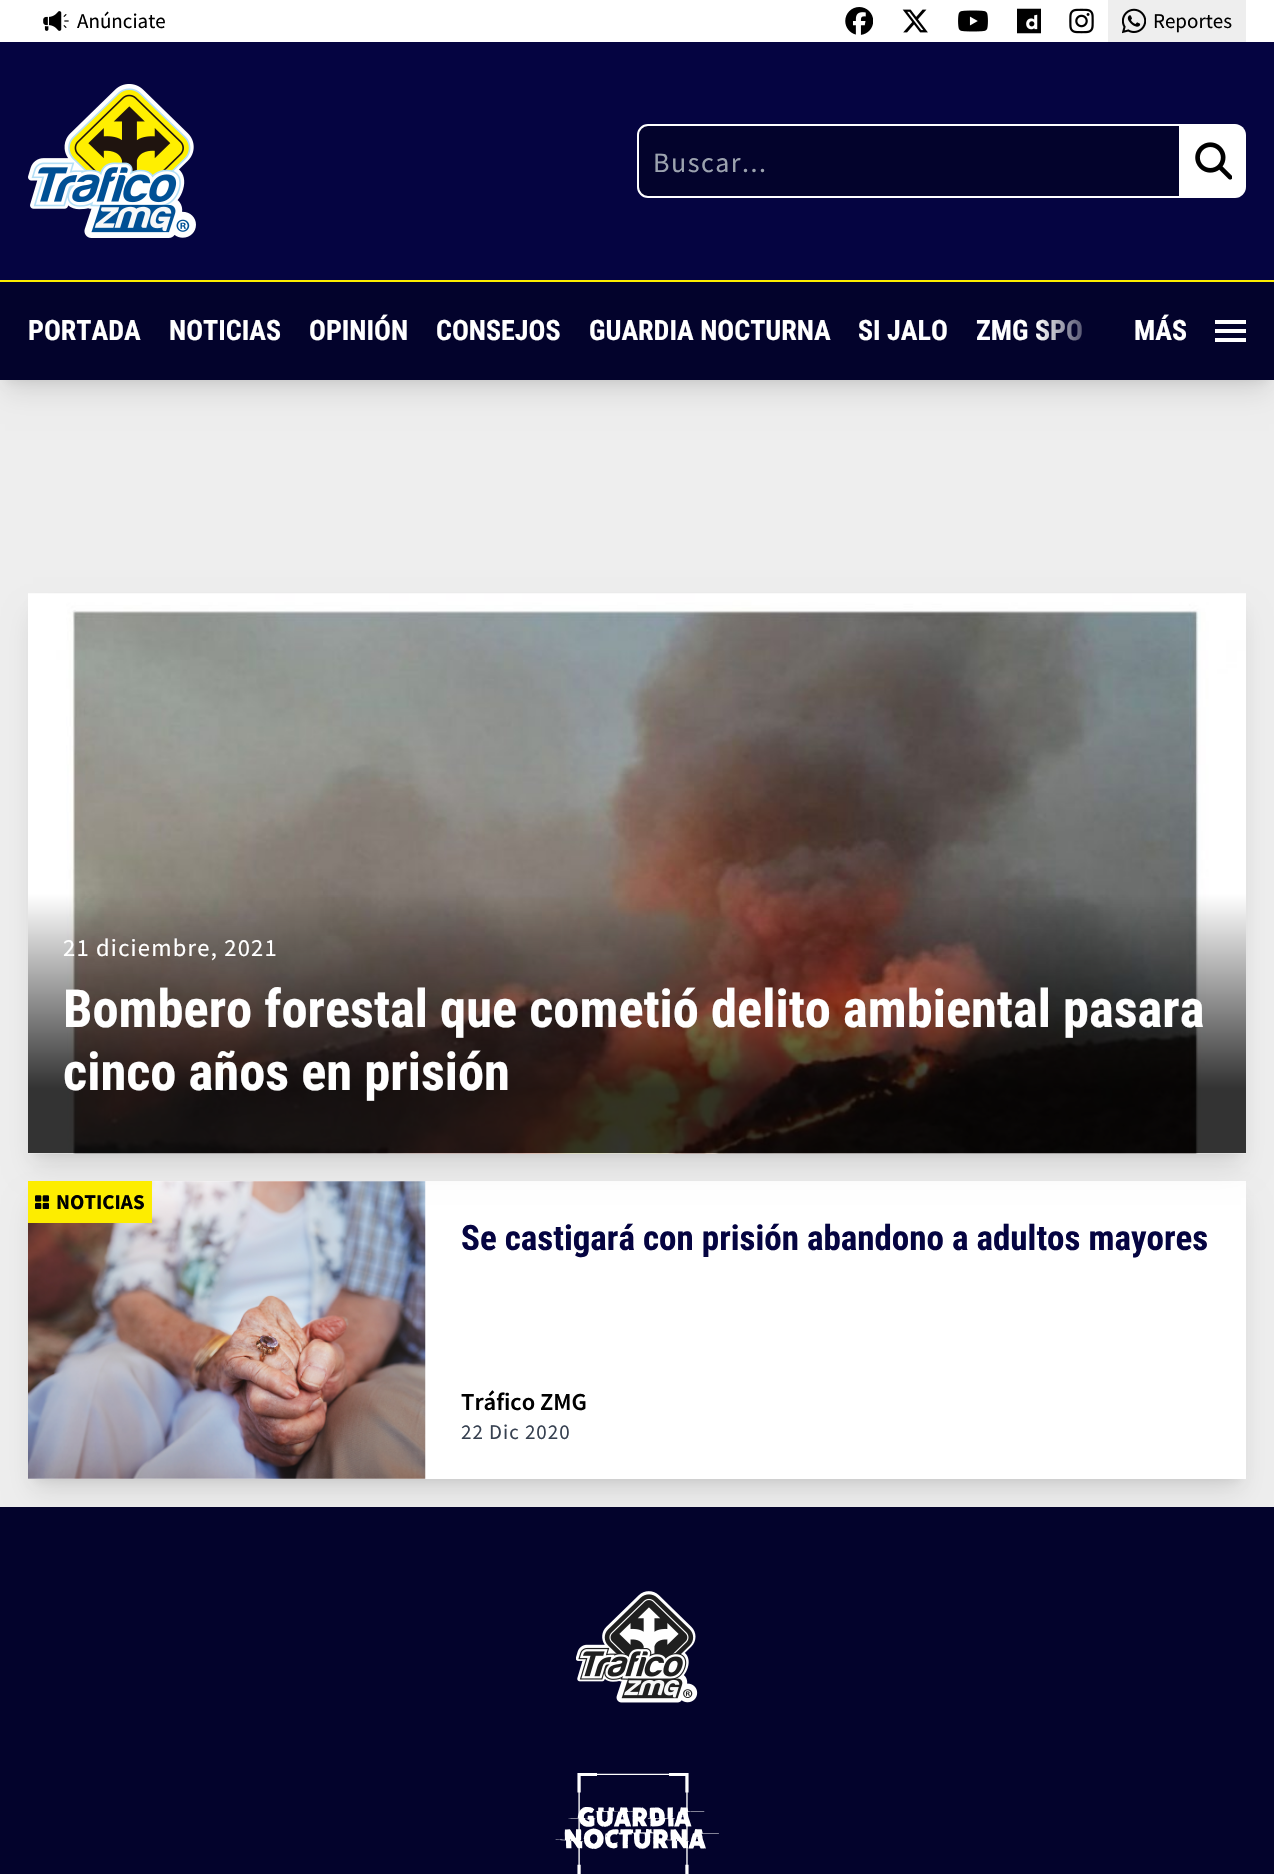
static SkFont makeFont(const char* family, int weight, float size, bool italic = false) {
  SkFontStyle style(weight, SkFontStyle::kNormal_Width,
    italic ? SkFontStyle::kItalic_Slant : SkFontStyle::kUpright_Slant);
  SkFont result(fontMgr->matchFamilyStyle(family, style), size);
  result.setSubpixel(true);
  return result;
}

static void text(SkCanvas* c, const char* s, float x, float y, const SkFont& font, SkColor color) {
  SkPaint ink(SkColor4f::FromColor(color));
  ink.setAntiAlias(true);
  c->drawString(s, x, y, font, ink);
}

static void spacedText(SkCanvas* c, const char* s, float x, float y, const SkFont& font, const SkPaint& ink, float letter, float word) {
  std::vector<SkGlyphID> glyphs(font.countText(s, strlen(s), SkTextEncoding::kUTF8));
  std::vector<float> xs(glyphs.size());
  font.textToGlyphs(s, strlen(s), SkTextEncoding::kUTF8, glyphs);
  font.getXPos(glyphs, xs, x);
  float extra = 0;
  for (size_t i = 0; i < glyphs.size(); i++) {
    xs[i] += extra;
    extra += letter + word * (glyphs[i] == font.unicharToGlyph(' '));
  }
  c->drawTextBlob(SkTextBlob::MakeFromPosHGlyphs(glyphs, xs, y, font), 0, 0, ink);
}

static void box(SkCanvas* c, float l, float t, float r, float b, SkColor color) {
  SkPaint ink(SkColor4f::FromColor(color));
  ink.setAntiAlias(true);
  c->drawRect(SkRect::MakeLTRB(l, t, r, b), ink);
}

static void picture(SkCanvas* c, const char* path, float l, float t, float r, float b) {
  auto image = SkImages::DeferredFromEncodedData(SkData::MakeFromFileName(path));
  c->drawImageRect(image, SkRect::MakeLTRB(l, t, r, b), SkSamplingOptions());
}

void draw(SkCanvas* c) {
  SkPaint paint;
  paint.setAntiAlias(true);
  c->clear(0xffeeeeee);
  paint.setColor(0x1a000000);
  paint.setMaskFilter(SkMaskFilter::MakeBlur(kNormal_SkBlurStyle, 5));
  c->drawRect(SkRect::MakeLTRB(7, 14, 1267, 380), paint);
  paint.setMaskFilter(nullptr);
  paint.setMaskFilter(SkMaskFilter::MakeBlur(kNormal_SkBlurStyle, 13));
  c->drawRect(SkRect::MakeLTRB(5, 23, 1269, 392), paint);
  paint.setMaskFilter(nullptr);
  box(c, 0, 0, 1274, 42, 0xffffffff);
  picture(c, "img_01.png", 43, 11, 69, 31);
  SkFont face1 = makeFont("Source Sans Pro", 400, 21);
  text(c, "Anúnciate", 77, 28, face1, 0xff000000);
  picture(c, "img_02.png", 845, 7, 873, 35);
  picture(c, "img_03.png", 902, 9, 928, 33);
  picture(c, "img_04.png", 958, 10, 988, 32);
  picture(c, "img_05.png", 1017, 8, 1041, 34);
  picture(c, "img_06.png", 1069, 8, 1094, 34);
  box(c, 1108, 0, 1246, 42, 0xffeeeeee);
  picture(c, "img_07.png", 1122, 8, 1146, 34);
  text(c, "Reportes", 1153, 28, face1, 0xff000000);
  box(c, 0, 42, 1274, 280, 0xff050441);
  picture(c, "img_08.png", 28, 84, 196, 238);
  paint.setColor(0xff03032c);
  c->drawPath(SkPathBuilder().moveTo(648, 125).lineTo(1180, 125).lineTo(1180, 197).lineTo(648, 197).cubicTo(642.5f, 197, 638, 192.5f, 638, 187).lineTo(638, 135).cubicTo(638, 129.5f, 642.5f, 125, 648, 125).close().detach(), paint);
  paint.setStyle(SkPaint::kStroke_Style);
  paint.setStrokeWidth(2);
  paint.setColor(0xffffffff);
  c->drawPath(SkPathBuilder().moveTo(648, 125).lineTo(1180, 125).lineTo(1180, 197).lineTo(648, 197).cubicTo(642.5f, 197, 638, 192.5f, 638, 187).lineTo(638, 135).cubicTo(638, 129.5f, 642.5f, 125, 648, 125).close().detach(), paint);
  SkFont face2 = makeFont("Source Sans Pro", 400, 28);
  paint.setStyle(SkPaint::kFill_Style);
  paint.setColor(0xff9ca3af);
  spacedText(c, "Buscar...", 653, 172, face2, paint, 1.5f, 0);
  paint.setColor(0xffffffff);
  c->drawPath(SkPathBuilder().moveTo(1181, 124).lineTo(1235, 124).cubicTo(1241, 124, 1246, 129, 1246, 135).lineTo(1246, 187).cubicTo(1246, 193, 1241, 198, 1235, 198).lineTo(1181, 198).close().detach(), paint);
  picture(c, "img_09.png", 1195, 142, 1232, 180);
  box(c, 0, 282, 1274, 380, 0xff03032c);
  box(c, 0, 280, 1274, 282, 0xfffded00);
  SkFont face3 = makeFont("Roboto Condensed", 700, 28);
  text(c, "PORTADA", 28, 340, face3, 0xffffffff);
  text(c, "NOTICIAS", 169, 340, face3, 0xffffffff);
  text(c, "OPINIÓN", 309, 340, face3, 0xffffffff);
  text(c, "CONSEJOS", 436, 340, face3, 0xffffffff);
  text(c, "GUARDIA NOCTURNA", 589, 340, face3, 0xffffffff);
  text(c, "SI JALO", 858, 340, face3, 0xffffffff);
  text(c, "ZMG SPO", 976, 340, face3, 0xffffffff);
  {
    const SkColor colors[] = {0x0003032c, 0xff03032c};
    const float stops[] = {0, 1};
    const SkPoint ends[] = {{1036, 331}, {1106, 331}};
    paint.setShader(SkGradientShader::MakeLinear(ends, colors, stops, 2, SkTileMode::kClamp));
    paint.setAlpha(255);
  }
  c->drawRect(SkRect::MakeLTRB(1038, 319, 1082, 341), paint);
  text(c, "MÁS", 1134, 340, face3, 0xffffffff);
  box(c, 1215, 329, 1246, 333, 0xffffffff);
  box(c, 1215, 320, 1246, 324, 0xffffffff);
  box(c, 1215, 338, 1246, 342, 0xffffffff);
  paint.setShader(nullptr);
  paint.setColor(0x1a000000);
  paint.setMaskFilter(SkMaskFilter::MakeBlur(kNormal_SkBlurStyle, 5));
  c->drawRect(SkRect::MakeLTRB(35, 607, 1239, 1153), paint);
  paint.setMaskFilter(nullptr);
  paint.setMaskFilter(SkMaskFilter::MakeBlur(kNormal_SkBlurStyle, 5));
  c->drawRect(SkRect::MakeLTRB(35, 1195, 1239, 1479), paint);
  paint.setMaskFilter(nullptr);
  paint.setMaskFilter(SkMaskFilter::MakeBlur(kNormal_SkBlurStyle, 13));
  c->drawRect(SkRect::MakeLTRB(33, 1204, 1241, 1491), paint);
  paint.setMaskFilter(nullptr);
  box(c, 28, 1181, 1246, 1479, 0xffffffff);
  paint.setMaskFilter(SkMaskFilter::MakeBlur(kNormal_SkBlurStyle, 13));
  c->drawRect(SkRect::MakeLTRB(33, 616, 1241, 1166), paint);
  paint.setMaskFilter(nullptr);
  picture(c, "img_10.png", 28, 593, 1246, 1154);
  SkFont face4 = makeFont("Source Sans Pro", 400, 24.5f);
  paint.setColor(0xffffffff);
  spacedText(c, "21 diciembre, 2021", 63, 956, face4, paint, 1.25f, 0);
  SkFont face5 = makeFont("Roboto Condensed", 700, 52.5f);
  text(c, "Bombero forestal que cometió delito ambiental pasara", 63, 1027, face5, 0xffffffff);
  text(c, "cinco años en prisión", 63, 1090, face5, 0xffffffff);
  picture(c, "img_11.png", 28, 1181, 426, 1479);
  box(c, 28, 1181, 152, 1223, 0xfffded00);
  picture(c, "img_12.png", 35, 1195, 49, 1209);
  SkFont face6 = makeFont("Source Sans Pro", 700, 21);
  text(c, "NOTICIAS", 56, 1209, face6, 0xff000000);
  SkFont face7 = makeFont("Roboto Condensed", 700, 35);
  text(c, "Se castigará con prisión abandono a adultos mayores", 461, 1250, face7, 0xff050441);
  SkFont face8 = makeFont("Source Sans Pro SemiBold", 600, 24.5f);
  text(c, "Tráfico ZMG", 461, 1410, face8, 0xff000000);
  paint.setColor(0xff374151);
  spacedText(c, "22 Dic 2020", 461, 1439, face1, paint, 1, 0);
  box(c, 0, 1507, 1274, 1874, 0xff03032c);
  picture(c, "img_13.png", 576, 1591, 698, 1703);
  picture(c, "img_14.png", 555, 1773, 719, 1874);
}
